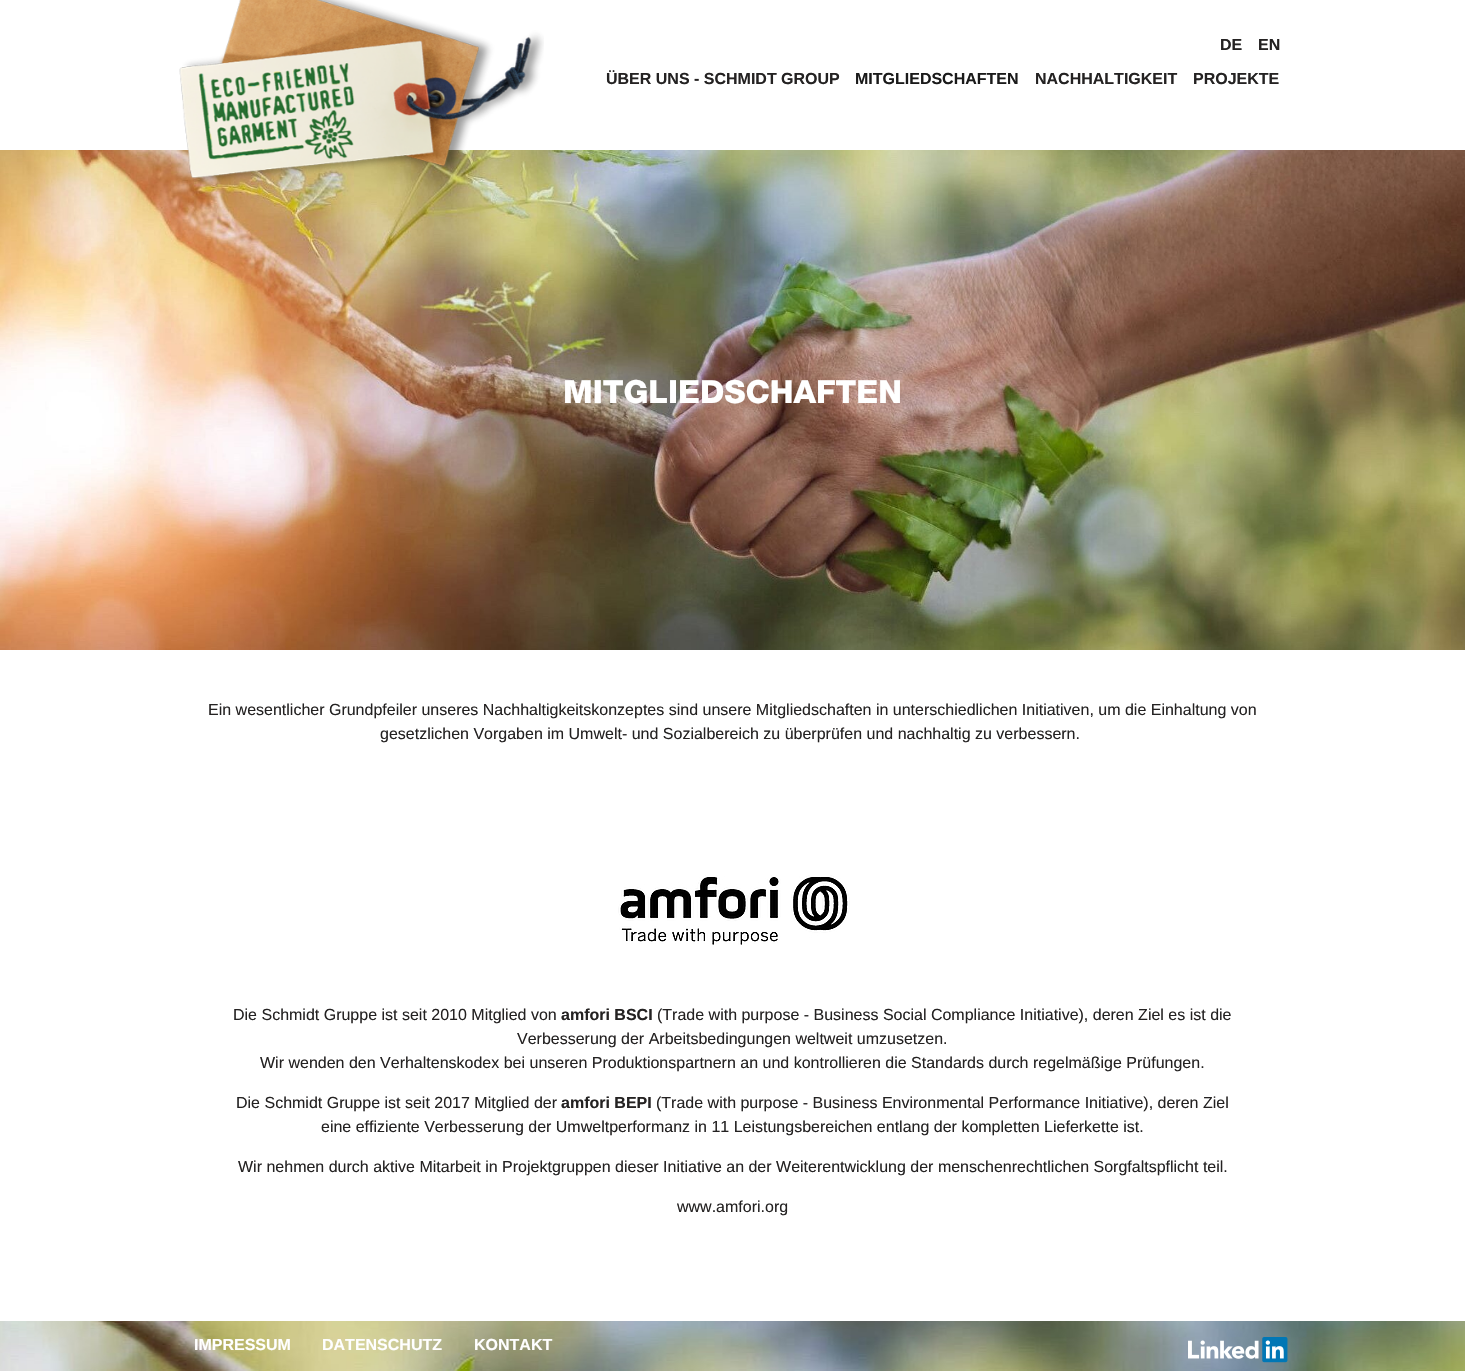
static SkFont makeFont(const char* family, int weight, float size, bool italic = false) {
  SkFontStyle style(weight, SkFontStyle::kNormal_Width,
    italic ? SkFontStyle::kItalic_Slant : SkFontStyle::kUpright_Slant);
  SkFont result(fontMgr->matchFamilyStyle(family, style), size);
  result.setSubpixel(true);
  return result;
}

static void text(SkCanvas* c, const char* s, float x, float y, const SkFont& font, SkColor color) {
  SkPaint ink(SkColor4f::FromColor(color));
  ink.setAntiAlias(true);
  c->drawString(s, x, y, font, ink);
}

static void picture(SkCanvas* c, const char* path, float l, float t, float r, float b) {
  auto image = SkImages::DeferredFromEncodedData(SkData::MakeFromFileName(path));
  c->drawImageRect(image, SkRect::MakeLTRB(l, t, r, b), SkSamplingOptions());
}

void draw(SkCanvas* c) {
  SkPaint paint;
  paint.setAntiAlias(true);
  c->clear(0xffffffff);
  picture(c, "img_02.png", 0, 150, 1465, 650);
  picture(c, "img_01.png", 179, 0, 544, 184);
  SkFont face1 = makeFont("Liberation Sans", 700, 16);
  text(c, "DE", 1220, 50, face1, 0xff242222);
  text(c, "EN", 1258, 50, face1, 0xff242222);
  text(c, "ÜBER UNS - SCHMIDT GROUP", 606, 84, face1, 0xff242222);
  text(c, "MITGLIEDSCHAFTEN", 855, 84, face1, 0xff1a1a1a);
  text(c, "NACHHALTIGKEIT", 1035, 84, face1, 0xff242222);
  text(c, "PROJEKTE", 1193, 84, face1, 0xff242222);
  SkFont face2 = makeFont("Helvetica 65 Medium", 900, 32);
  text(c, "MITGLIEDSCHAFTEN", 563, 403, face2, 0xffffffff);
  SkFont face3 = makeFont("Liberation Sans", 400, 16);
  text(c, "Ein wesentlicher Grundpfeiler unseres Nachhaltigkeitskonzeptes sind unsere Mitgliedschaften in unterschiedlichen Initiativen, um die Einhaltung von", 208, 715, face3, 0xff242222);
  text(c, "gesetzlichen Vorgaben im Umwelt- und Sozialbereich zu überprüfen und nachhaltig zu verbessern.", 380, 739, face3, 0xff242222);
  picture(c, "img_03.png", 618, 875, 850, 945);
  text(c, "Die Schmidt Gruppe ist seit 2010 Mitglied von", 233, 1020, face3, 0xff242222);
  text(c, "amfori BSCI", 561, 1020, face1, 0xff242222);
  text(c, "(Trade with purpose - Business Social Compliance Initiative), deren Ziel es ist die", 657, 1020, face3, 0xff242222);
  text(c, "Verbesserung der Arbeitsbedingungen weltweit umzusetzen.", 517, 1044, face3, 0xff242222);
  text(c, "Wir wenden den Verhaltenskodex bei unseren Produktionspartnern an und kontrollieren die Standards durch regelmäßige Prüfungen.", 260, 1068, face3, 0xff242222);
  text(c, "Die Schmidt Gruppe ist seit 2017 Mitglied der", 236, 1108, face3, 0xff242222);
  text(c, "amfori BEPI", 561, 1108, face1, 0xff242222);
  text(c, "(Trade with purpose - Business Environmental Performance Initiative), deren Ziel", 656, 1108, face3, 0xff242222);
  text(c, "eine effiziente Verbesserung der Umweltperformanz in 11 Leistungsbereichen entlang der kompletten Lieferkette ist.", 321, 1132, face3, 0xff242222);
  text(c, "Wir nehmen durch aktive Mitarbeit in Projektgruppen dieser Initiative an der Weiterentwicklung der menschenrechtlichen Sorgfaltspflicht teil.", 238, 1172, face3, 0xff242222);
  text(c, "www.amfori.org", 677, 1212, face3, 0xff242222);
  picture(c, "img_04.png", 0, 1321, 1465, 1371);
  text(c, "IMPRESSUM", 194, 1350, face1, 0xffffffff);
  text(c, "DATENSCHUTZ", 322, 1350, face1, 0xffffffff);
  text(c, "KONTAKT", 474, 1350, face1, 0xffffffff);
  picture(c, "img_05.png", 1188, 1337, 1288, 1363);
}
